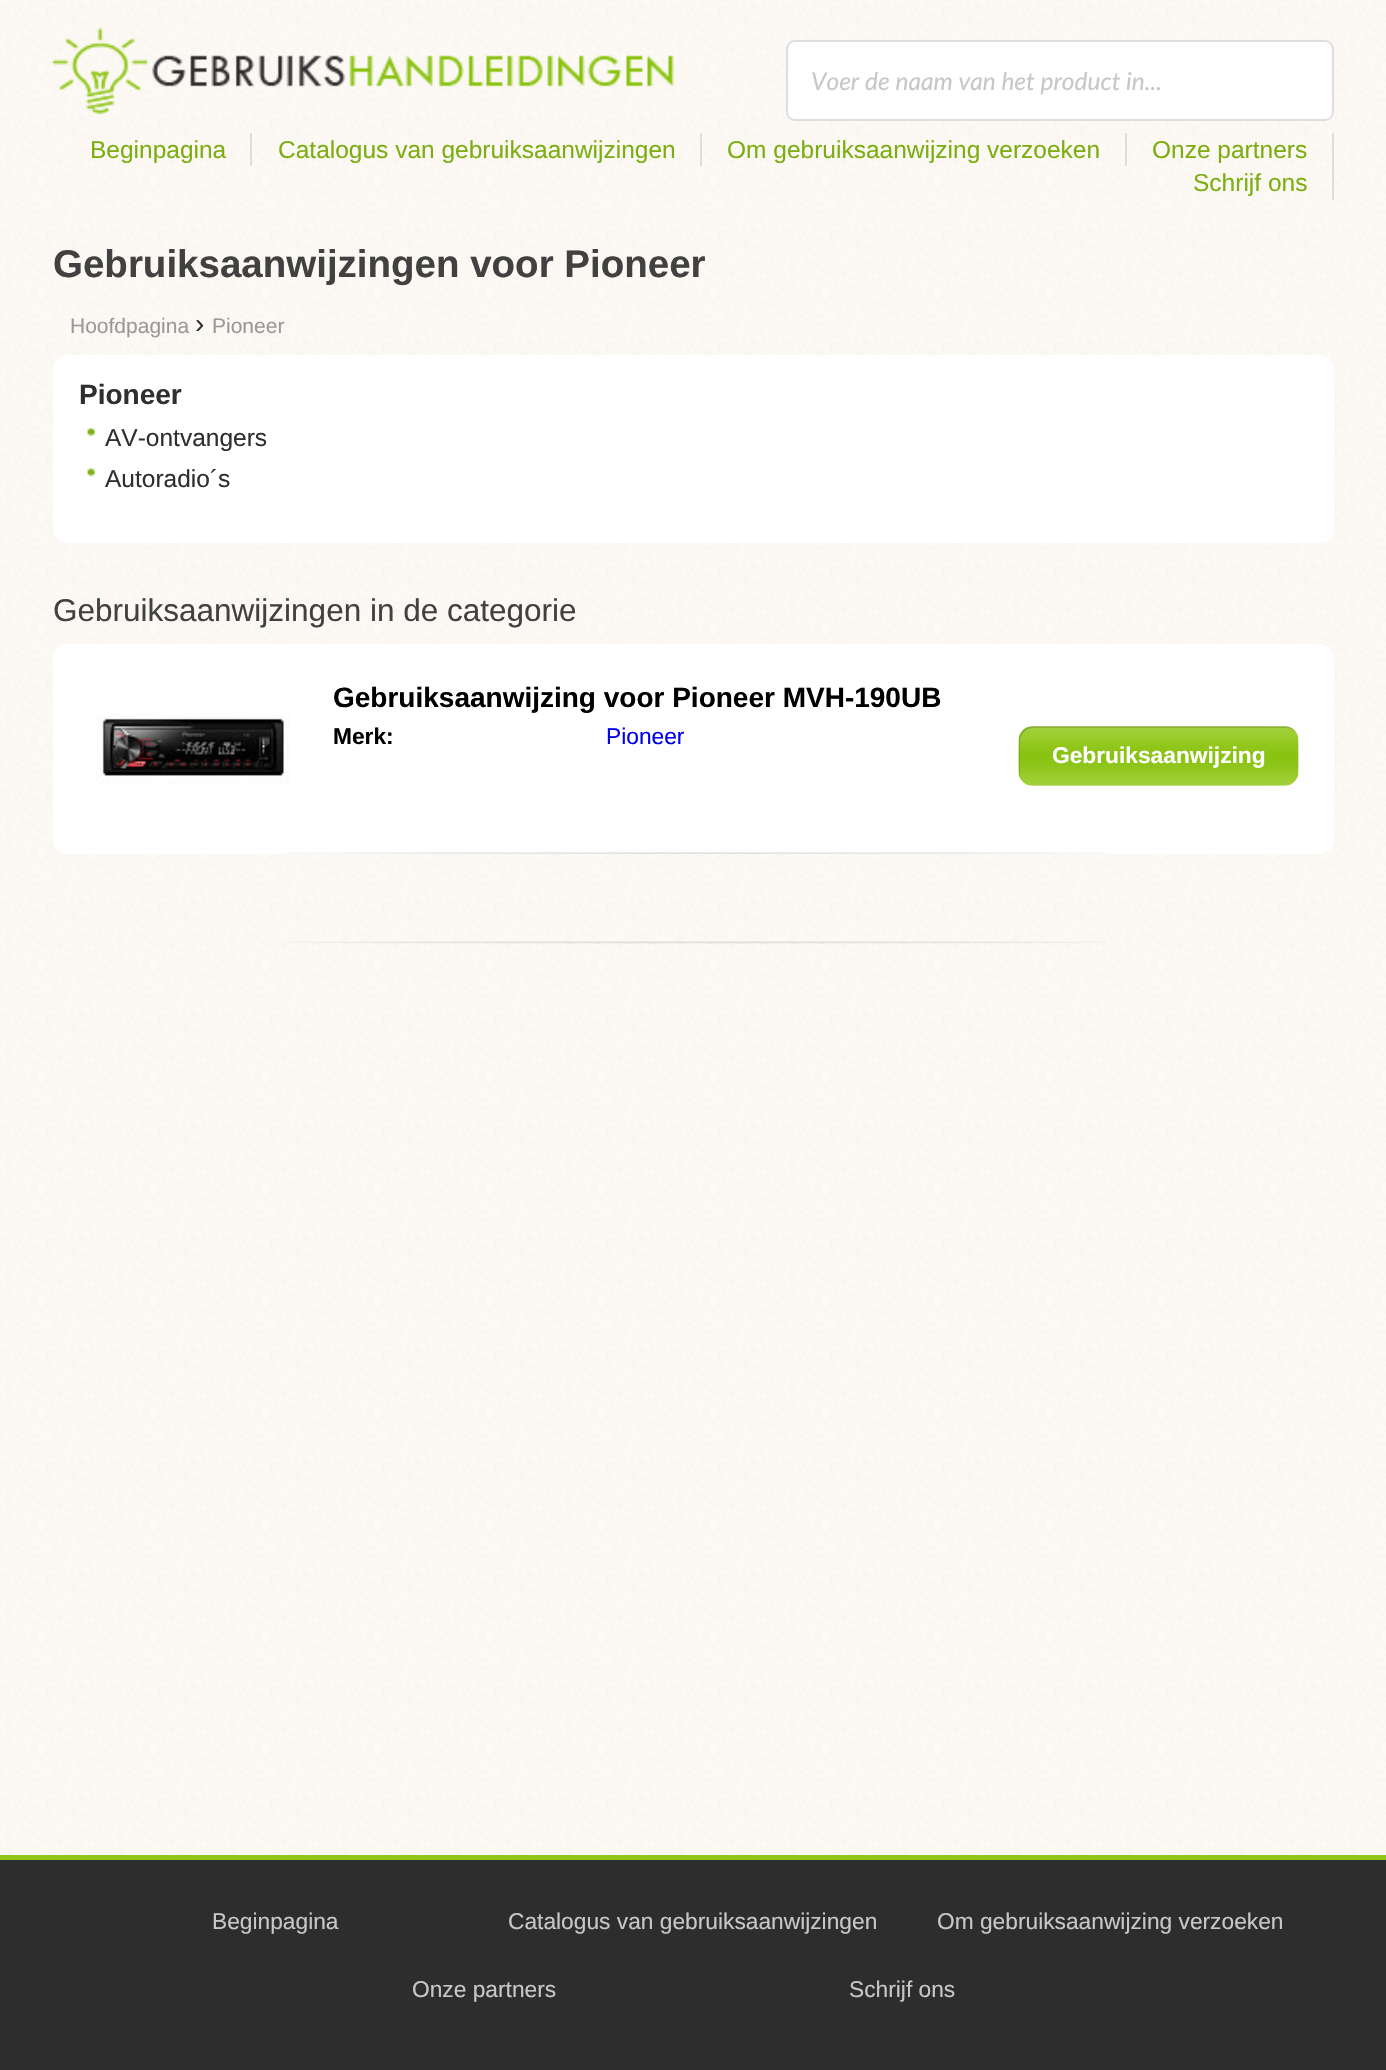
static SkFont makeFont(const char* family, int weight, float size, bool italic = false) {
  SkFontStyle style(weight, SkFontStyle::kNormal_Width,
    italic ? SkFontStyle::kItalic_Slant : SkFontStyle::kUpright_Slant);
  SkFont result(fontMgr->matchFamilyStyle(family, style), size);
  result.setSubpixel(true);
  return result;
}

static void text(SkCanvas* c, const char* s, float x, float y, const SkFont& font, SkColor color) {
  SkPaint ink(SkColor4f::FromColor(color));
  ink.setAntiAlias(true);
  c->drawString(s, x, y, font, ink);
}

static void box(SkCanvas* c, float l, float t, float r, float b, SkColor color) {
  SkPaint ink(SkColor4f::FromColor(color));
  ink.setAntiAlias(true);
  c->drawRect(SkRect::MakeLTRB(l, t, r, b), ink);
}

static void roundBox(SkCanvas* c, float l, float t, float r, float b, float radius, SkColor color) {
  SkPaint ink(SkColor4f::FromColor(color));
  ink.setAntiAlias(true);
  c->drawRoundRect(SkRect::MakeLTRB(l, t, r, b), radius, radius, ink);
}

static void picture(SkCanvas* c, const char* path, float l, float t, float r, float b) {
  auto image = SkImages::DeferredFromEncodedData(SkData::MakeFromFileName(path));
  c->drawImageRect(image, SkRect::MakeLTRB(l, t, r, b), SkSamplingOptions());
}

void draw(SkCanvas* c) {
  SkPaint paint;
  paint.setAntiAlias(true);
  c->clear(0xffffffff);
  picture(c, "img_01.png", 0, 0, 1386, 1855);
  picture(c, "img_02.png", 52, 27, 675, 115);
  roundBox(c, 786, 40, 1334, 121, 9, 0xffffffff);
  paint.setStyle(SkPaint::kStroke_Style);
  paint.setStrokeWidth(2);
  paint.setColor(0x26222426);
  c->drawRoundRect(SkRect::MakeLTRB(787, 41, 1333, 120), 8, 8, paint);
  SkFont face1 = makeFont("Lato", 400, 24.5f, true);
  text(c, "Voer de naam van het product in...", 811, 90, face1, 0xffc7c7c7);
  box(c, 250, 133, 252, 166, 0xffdddddd);
  SkFont face2 = makeFont("Liberation Sans", 400, 24.5f);
  text(c, "Beginpagina", 90, 158, face2, 0xff7cae11);
  box(c, 700, 133, 702, 166, 0xffdddddd);
  text(c, "Catalogus van gebruiksaanwijzingen", 278, 158, face2, 0xff7cae11);
  box(c, 1125, 133, 1127, 166, 0xffdddddd);
  text(c, "Om gebruiksaanwijzing verzoeken", 727, 158, face2, 0xff7cae11);
  box(c, 1332, 133, 1334, 200, 0xffdddddd);
  text(c, "Onze partners", 1152, 158, face2, 0xff7cae11);
  text(c, "Schrijf ons", 1193, 191, face2, 0xff7cae11);
  SkFont face3 = makeFont("Liberation Sans", 700, 38.5f);
  text(c, "Gebruiksaanwijzingen voor Pioneer", 53, 277, face3, 0xff414141);
  SkFont face4 = makeFont("Liberation Sans", 400, 21);
  text(c, "Hoofdpagina", 70, 333, face4, 0xff999999);
  SkFont face5 = makeFont("Liberation Sans", 400, 28);
  text(c, "›", 195, 333, face5, 0xff2f2f2f);
  text(c, "Pioneer", 212, 333, face4, 0xff999999);
  roundBox(c, 53, 355, 1334, 543, 14, 0xffffffff);
  SkFont face6 = makeFont("Liberation Sans", 700, 28);
  text(c, "Pioneer", 79, 404, face6, 0xff2f2f2f);
  picture(c, "img_03.png", 87, 426, 95, 437);
  text(c, "AV-ontvangers", 105, 446, face2, 0xff2f2f2f);
  picture(c, "img_04.png", 87, 467, 95, 477);
  text(c, "Autoradio´s", 105, 487, face2, 0xff2f2f2f);
  SkFont face7 = makeFont("Liberation Sans", 400, 31.5f);
  text(c, "Gebruiksaanwijzingen in de categorie", 53, 621, face7, 0xff414141);
  roundBox(c, 53, 644, 1334, 854, 14, 0xffffffff);
  picture(c, "img_05.png", 284, 852, 1105, 854);
  picture(c, "img_06.png", 96, 716, 291, 784);
  text(c, "Gebruiksaanwijzing voor Pioneer MVH-190UB", 333, 707, face6, 0xff000000);
  SkFont face8 = makeFont("Liberation Sans", 700, 22.75f);
  text(c, "Merk:", 333, 744, face8, 0xff000000);
  SkFont face9 = makeFont("Liberation Sans", 400, 22.75f);
  text(c, "Pioneer", 606, 744, face9, 0xff0000ee);
  picture(c, "img_07.png", 1018, 726, 1299, 786);
  paint.setStyle(SkPaint::kFill_Style);
  paint.setColor(0x24000000);
  c->drawPath(SkPathBuilder().moveTo(1034, 728).lineTo(1286, 728).cubicTo(1291, 728, 1295, 730, 1298, 734).cubicTo(1295, 729, 1291, 726, 1285, 726).lineTo(1033, 726).cubicTo(1025, 726, 1019, 732, 1019, 740).lineTo(1019, 772).cubicTo(1019, 775, 1020, 778, 1022, 781).cubicTo(1021, 779, 1020, 776, 1020, 774).lineTo(1020, 742).cubicTo(1020, 734, 1027, 728, 1034, 728).close().detach(), paint);
  text(c, "Gebruiksaanwijzing", 1052, 763, face8, 0xffffffff);
  picture(c, "img_08.png", 284, 941, 1105, 944);
  box(c, 0, 1860, 1386, 2070, 0xff2d2d2d);
  box(c, 0, 1855, 1386, 1860, 0xff90c61b);
  text(c, "Beginpagina", 212, 1929, face9, 0xffc7c7c7);
  text(c, "Catalogus van gebruiksaanwijzingen", 508, 1929, face9, 0xffc7c7c7);
  text(c, "Om gebruiksaanwijzing verzoeken", 937, 1929, face9, 0xffc7c7c7);
  text(c, "Onze partners", 412, 1997, face9, 0xffc7c7c7);
  text(c, "Schrijf ons", 849, 1997, face9, 0xffc7c7c7);
}
